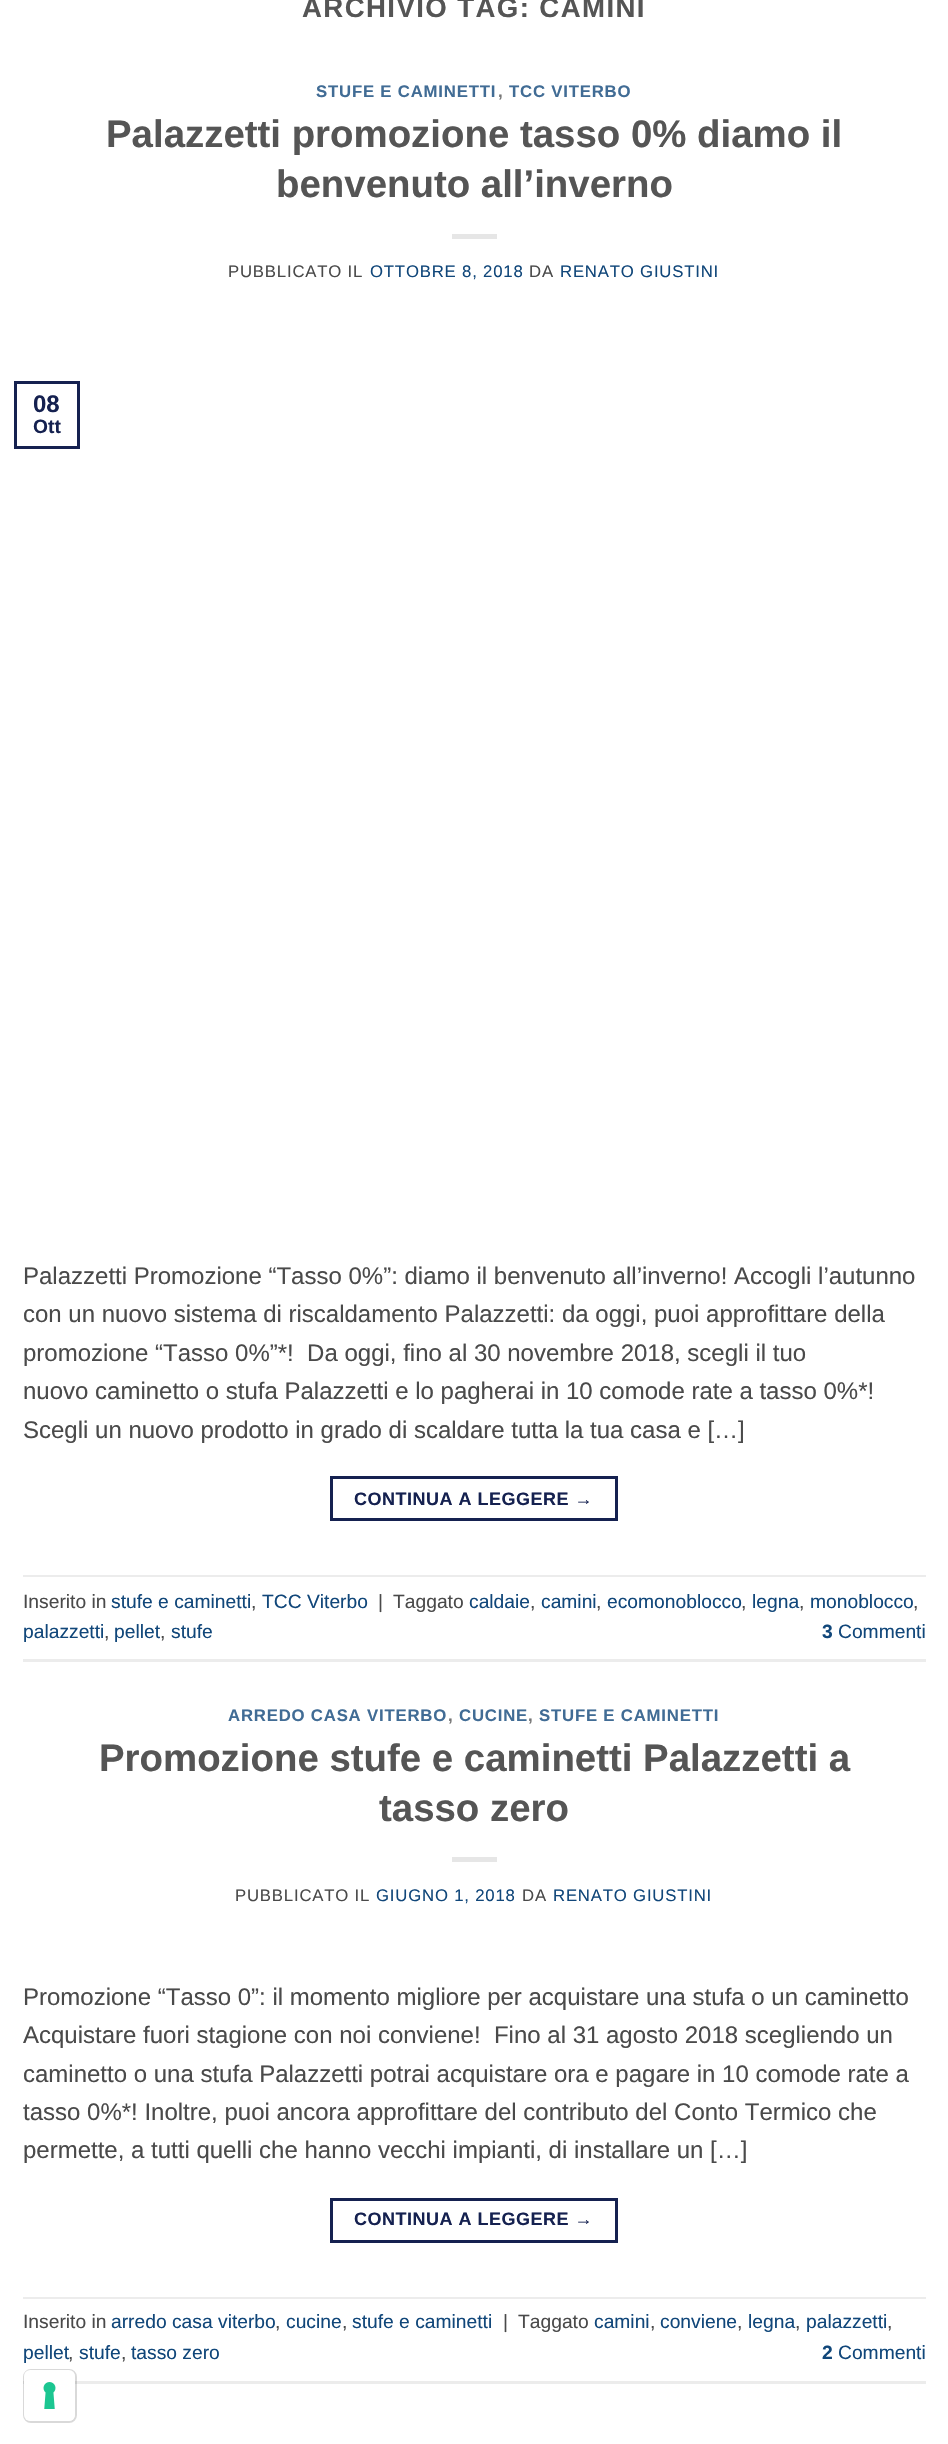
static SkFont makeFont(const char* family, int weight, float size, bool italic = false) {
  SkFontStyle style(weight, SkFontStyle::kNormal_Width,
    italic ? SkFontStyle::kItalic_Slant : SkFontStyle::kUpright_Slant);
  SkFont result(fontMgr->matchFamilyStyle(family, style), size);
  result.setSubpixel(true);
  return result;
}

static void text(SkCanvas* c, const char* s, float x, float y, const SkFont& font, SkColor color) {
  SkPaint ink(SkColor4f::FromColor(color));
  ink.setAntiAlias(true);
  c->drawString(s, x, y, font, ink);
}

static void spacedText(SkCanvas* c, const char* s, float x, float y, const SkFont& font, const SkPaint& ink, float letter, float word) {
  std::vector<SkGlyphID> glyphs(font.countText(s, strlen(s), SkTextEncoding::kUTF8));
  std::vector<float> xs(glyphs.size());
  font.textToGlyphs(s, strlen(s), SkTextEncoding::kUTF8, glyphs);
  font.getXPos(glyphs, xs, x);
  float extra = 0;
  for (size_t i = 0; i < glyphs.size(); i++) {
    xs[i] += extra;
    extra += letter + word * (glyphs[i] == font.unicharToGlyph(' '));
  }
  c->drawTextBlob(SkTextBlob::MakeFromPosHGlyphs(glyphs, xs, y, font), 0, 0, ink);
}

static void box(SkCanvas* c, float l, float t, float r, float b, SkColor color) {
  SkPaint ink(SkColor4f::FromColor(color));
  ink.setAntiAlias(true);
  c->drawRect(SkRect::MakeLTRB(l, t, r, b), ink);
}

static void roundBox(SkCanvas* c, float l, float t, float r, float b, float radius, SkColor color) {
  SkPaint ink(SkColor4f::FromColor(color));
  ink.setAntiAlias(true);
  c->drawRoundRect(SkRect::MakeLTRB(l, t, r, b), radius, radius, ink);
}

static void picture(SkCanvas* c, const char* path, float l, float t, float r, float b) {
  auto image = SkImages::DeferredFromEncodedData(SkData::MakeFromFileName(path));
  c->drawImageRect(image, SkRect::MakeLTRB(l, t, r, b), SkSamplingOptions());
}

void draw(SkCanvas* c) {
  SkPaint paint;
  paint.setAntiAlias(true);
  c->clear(0xffffffff);
  SkFont face1 = makeFont("Liberation Sans", 700, 27.6f);
  paint.setColor(0xff555555);
  spacedText(c, "ARCHIVIO TAG: CAMINI", 302, 17, face1, paint, 1.4f, 0);
  SkFont face2 = makeFont("Liberation Sans", 700, 16.75f);
  paint.setColor(0xff416c95);
  spacedText(c, "STUFE E CAMINETTI", 316, 97, face2, paint, 0.8f, 0);
  paint.setColor(0xff777777);
  spacedText(c, ",", 498, 97, face2, paint, 0.8f, 0);
  paint.setColor(0xff416c95);
  spacedText(c, "TCC VITERBO", 509, 97, face2, paint, 0.8f, 0);
  SkFont face3 = makeFont("Liberation Sans", 700, 38.4f);
  text(c, "Palazzetti promozione tasso 0% diamo il", 106, 147, face3, 0xff555555);
  text(c, "benvenuto all’inverno", 276, 197, face3, 0xff555555);
  box(c, 452, 234, 497, 239, 0xffe6e6e6);
  SkFont face4 = makeFont("Liberation Sans", 400, 16.75f);
  paint.setColor(0xff4a4a4a);
  spacedText(c, "PUBBLICATO IL", 228, 277, face4, paint, 0.8f, 0);
  paint.setColor(0xff11477a);
  spacedText(c, "OTTOBRE 8, 2018", 370, 277, face4, paint, 0.8f, 0);
  paint.setColor(0xff4a4a4a);
  spacedText(c, "DA", 529, 277, face4, paint, 0.8f, 0);
  paint.setColor(0xff11477a);
  spacedText(c, "RENATO GIUSTINI", 560, 277, face4, paint, 0.8f, 0);
  paint.setStyle(SkPaint::kStroke_Style);
  paint.setStrokeWidth(3);
  paint.setColor(0xff152150);
  c->drawRect(SkRect::MakeLTRB(15.5f, 382.5f, 78.5f, 447.5f), paint);
  SkFont face5 = makeFont("Liberation Sans", 700, 24);
  text(c, "08", 33, 412, face5, 0xff152150);
  SkFont face6 = makeFont("Liberation Sans", 700, 19.25f);
  text(c, "Ott", 33, 433, face6, 0xff152150);
  SkFont face7 = makeFont("Liberation Sans", 400, 24);
  text(c, "Palazzetti Promozione “Tasso 0%”: diamo il benvenuto all’inverno! Accogli l’autunno", 23, 1284, face7, 0xff4a4a4a);
  text(c, "con un nuovo sistema di riscaldamento Palazzetti: da oggi, puoi approfittare della", 23, 1322, face7, 0xff4a4a4a);
  text(c, "promozione “Tasso 0%”*!  Da oggi, fino al 30 novembre 2018, scegli il tuo", 23, 1361, face7, 0xff4a4a4a);
  text(c, "nuovo caminetto o stufa Palazzetti e lo pagherai in 10 comode rate a tasso 0%*!", 23, 1399, face7, 0xff4a4a4a);
  text(c, "Scegli un nuovo prodotto in grado di scaldare tutta la tua casa e […]", 23, 1438, face7, 0xff4a4a4a);
  c->drawRect(SkRect::MakeLTRB(331.5f, 1477.5f, 616.5f, 1519.5f), paint);
  SkFont face8 = makeFont("Liberation Sans", 700, 18);
  paint.setStyle(SkPaint::kFill_Style);
  spacedText(c, "CONTINUA A LEGGERE →", 354, 1505, face8, paint, 0.5f, 0);
  box(c, 23, 1575, 926, 1577, 0xffececec);
  box(c, 23, 1659, 926, 1662, 0xffececec);
  SkFont face9 = makeFont("Liberation Sans", 400, 19.25f);
  text(c, "Inserito in", 23, 1608, face9, 0xff4a4a4a);
  text(c, "stufe e caminetti", 111, 1608, face9, 0xff11477a);
  text(c, ",", 251, 1608, face9, 0xff4a4a4a);
  text(c, "TCC Viterbo", 262, 1608, face9, 0xff11477a);
  text(c, "|", 378, 1608, face9, 0xff4a4a4a);
  text(c, "Taggato", 393, 1608, face9, 0xff4a4a4a);
  text(c, "caldaie", 469, 1608, face9, 0xff11477a);
  text(c, ",", 530, 1608, face9, 0xff4a4a4a);
  text(c, "camini", 541, 1608, face9, 0xff11477a);
  text(c, ",", 596, 1608, face9, 0xff4a4a4a);
  text(c, "ecomonoblocco", 607, 1608, face9, 0xff11477a);
  text(c, ",", 741, 1608, face9, 0xff4a4a4a);
  text(c, "legna", 752, 1608, face9, 0xff11477a);
  text(c, ",", 799, 1608, face9, 0xff4a4a4a);
  text(c, "monoblocco", 810, 1608, face9, 0xff11477a);
  text(c, ",", 913, 1608, face9, 0xff4a4a4a);
  text(c, "palazzetti", 23, 1638, face9, 0xff11477a);
  text(c, ",", 104, 1638, face9, 0xff4a4a4a);
  text(c, "pellet", 114, 1638, face9, 0xff11477a);
  text(c, ",", 160, 1638, face9, 0xff4a4a4a);
  text(c, "stufe", 171, 1638, face9, 0xff11477a);
  text(c, "3", 822, 1638, face6, 0xff11477a);
  text(c, "Commenti", 838, 1638, face9, 0xff11477a);
  paint.setColor(0xff416c95);
  spacedText(c, "ARREDO CASA VITERBO", 228, 1721, face2, paint, 0.8f, 0);
  paint.setColor(0xff777777);
  spacedText(c, ",", 448, 1721, face2, paint, 0.8f, 0);
  paint.setColor(0xff416c95);
  spacedText(c, "CUCINE", 459, 1721, face2, paint, 0.8f, 0);
  paint.setColor(0xff777777);
  spacedText(c, ",", 528, 1721, face2, paint, 0.8f, 0);
  paint.setColor(0xff416c95);
  spacedText(c, "STUFE E CAMINETTI", 539, 1721, face2, paint, 0.8f, 0);
  text(c, "Promozione stufe e caminetti Palazzetti a", 99, 1771, face3, 0xff555555);
  text(c, "tasso zero", 379, 1821, face3, 0xff555555);
  box(c, 452, 1857, 497, 1862, 0xffe6e6e6);
  paint.setColor(0xff4a4a4a);
  spacedText(c, "PUBBLICATO IL", 235, 1901, face4, paint, 0.8f, 0);
  paint.setColor(0xff11477a);
  spacedText(c, "GIUGNO 1, 2018", 376, 1901, face4, paint, 0.8f, 0);
  paint.setColor(0xff4a4a4a);
  spacedText(c, "DA", 522, 1901, face4, paint, 0.8f, 0);
  paint.setColor(0xff11477a);
  spacedText(c, "RENATO GIUSTINI", 553, 1901, face4, paint, 0.8f, 0);
  text(c, "Promozione “Tasso 0”: il momento migliore per acquistare una stufa o un caminetto", 23, 2005, face7, 0xff4a4a4a);
  text(c, "Acquistare fuori stagione con noi conviene!  Fino al 31 agosto 2018 scegliendo un", 23, 2043, face7, 0xff4a4a4a);
  text(c, "caminetto o una stufa Palazzetti potrai acquistare ora e pagare in 10 comode rate a", 23, 2082, face7, 0xff4a4a4a);
  text(c, "tasso 0%*! Inoltre, puoi ancora approfittare del contributo del Conto Termico che", 23, 2120, face7, 0xff4a4a4a);
  text(c, "permette, a tutti quelli che hanno vecchi impianti, di installare un […]", 23, 2158, face7, 0xff4a4a4a);
  paint.setStyle(SkPaint::kStroke_Style);
  paint.setColor(0xff152150);
  c->drawRect(SkRect::MakeLTRB(331.5f, 2199.5f, 616.5f, 2241.5f), paint);
  paint.setStyle(SkPaint::kFill_Style);
  spacedText(c, "CONTINUA A LEGGERE →", 354, 2225, face8, paint, 0.5f, 0);
  box(c, 23, 2297, 926, 2299, 0xffececec);
  box(c, 23, 2381, 926, 2384, 0xffececec);
  text(c, "Inserito in", 23, 2328, face9, 0xff4a4a4a);
  text(c, "arredo casa viterbo", 111, 2328, face9, 0xff11477a);
  text(c, ",", 275, 2328, face9, 0xff4a4a4a);
  text(c, "cucine", 286, 2328, face9, 0xff11477a);
  text(c, ",", 342, 2328, face9, 0xff4a4a4a);
  text(c, "stufe e caminetti", 352, 2328, face9, 0xff11477a);
  text(c, "|", 503, 2328, face9, 0xff4a4a4a);
  text(c, "Taggato", 518, 2328, face9, 0xff4a4a4a);
  text(c, "camini", 594, 2328, face9, 0xff11477a);
  text(c, ",", 650, 2328, face9, 0xff4a4a4a);
  text(c, "conviene", 660, 2328, face9, 0xff11477a);
  text(c, ",", 737, 2328, face9, 0xff4a4a4a);
  text(c, "legna", 748, 2328, face9, 0xff11477a);
  text(c, ",", 795, 2328, face9, 0xff4a4a4a);
  text(c, "palazzetti", 806, 2328, face9, 0xff11477a);
  text(c, ",", 887, 2328, face9, 0xff4a4a4a);
  text(c, "pellet", 23, 2359, face9, 0xff11477a);
  text(c, ",", 68, 2359, face9, 0xff4a4a4a);
  text(c, "stufe", 79, 2359, face9, 0xff11477a);
  text(c, ",", 121, 2359, face9, 0xff4a4a4a);
  text(c, "tasso zero", 131, 2359, face9, 0xff11477a);
  text(c, "2", 822, 2359, face6, 0xff11477a);
  text(c, "Commenti", 838, 2359, face9, 0xff11477a);
  paint.setStyle(SkPaint::kStroke_Style);
  paint.setStrokeWidth(2);
  paint.setColor(0x26000000);
  c->drawRoundRect(SkRect::MakeLTRB(24, 2370, 76, 2422), 7, 7, paint);
  roundBox(c, 24, 2370, 75, 2421, 6, 0xffffffff);
  picture(c, "img_01.png", 43, 2382, 56, 2409);
}
